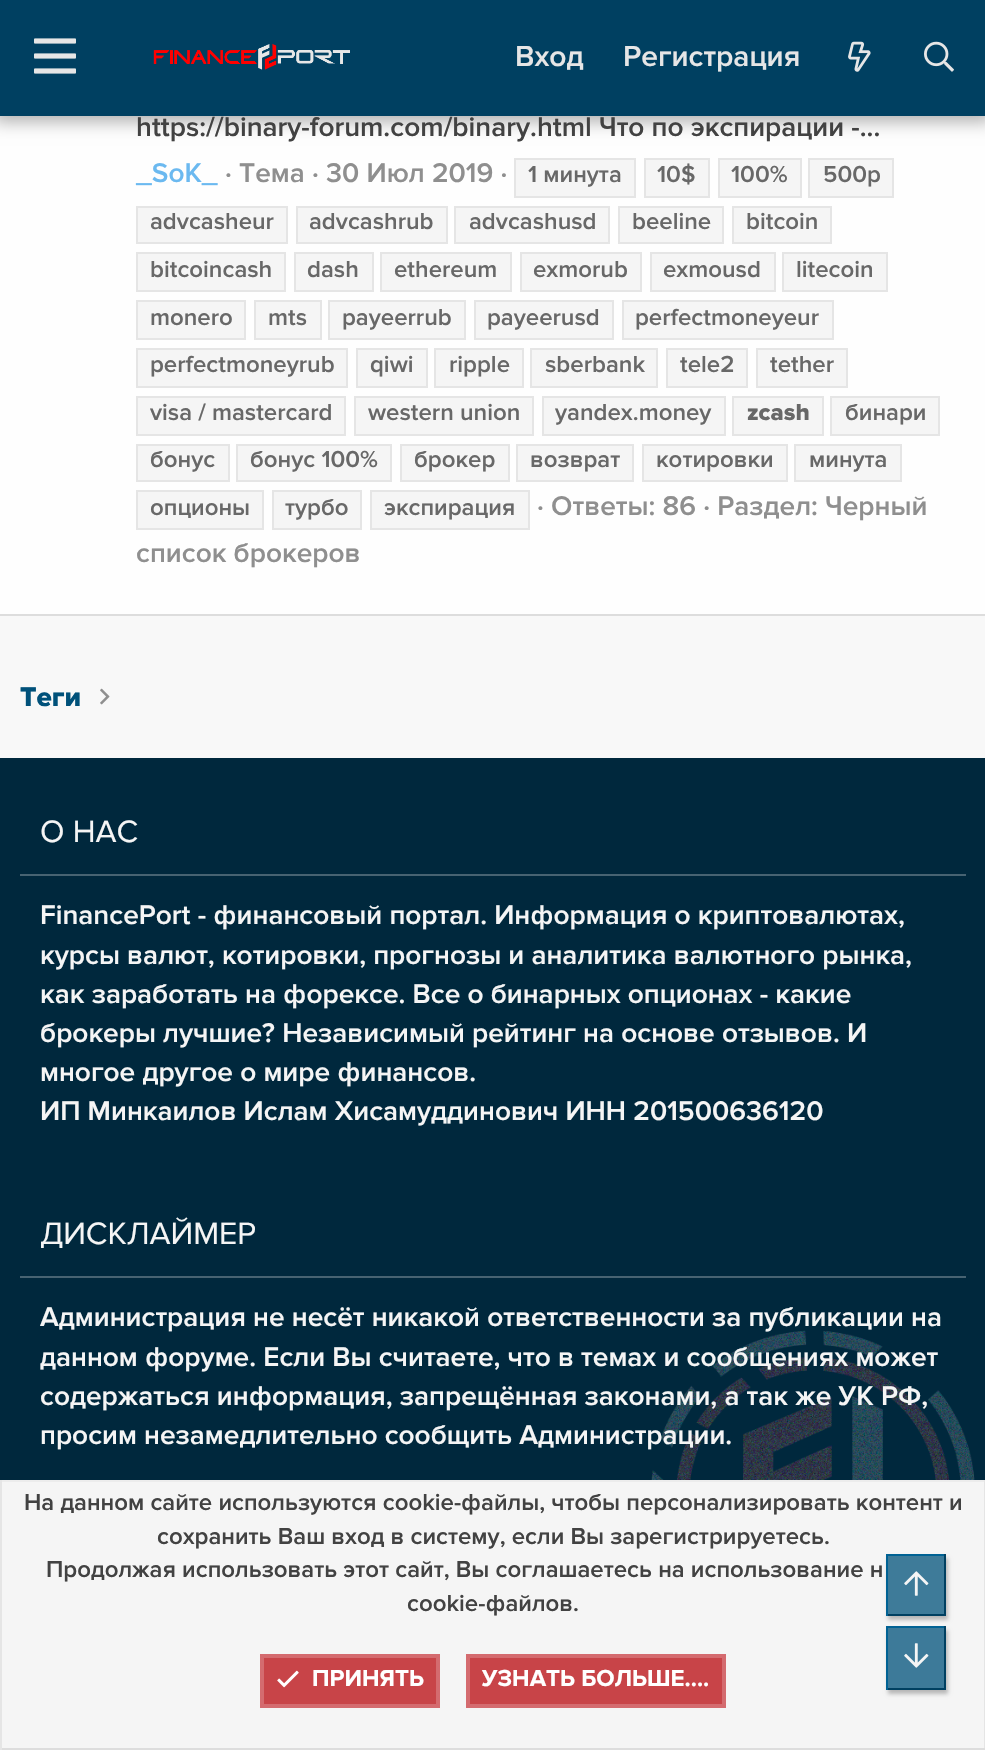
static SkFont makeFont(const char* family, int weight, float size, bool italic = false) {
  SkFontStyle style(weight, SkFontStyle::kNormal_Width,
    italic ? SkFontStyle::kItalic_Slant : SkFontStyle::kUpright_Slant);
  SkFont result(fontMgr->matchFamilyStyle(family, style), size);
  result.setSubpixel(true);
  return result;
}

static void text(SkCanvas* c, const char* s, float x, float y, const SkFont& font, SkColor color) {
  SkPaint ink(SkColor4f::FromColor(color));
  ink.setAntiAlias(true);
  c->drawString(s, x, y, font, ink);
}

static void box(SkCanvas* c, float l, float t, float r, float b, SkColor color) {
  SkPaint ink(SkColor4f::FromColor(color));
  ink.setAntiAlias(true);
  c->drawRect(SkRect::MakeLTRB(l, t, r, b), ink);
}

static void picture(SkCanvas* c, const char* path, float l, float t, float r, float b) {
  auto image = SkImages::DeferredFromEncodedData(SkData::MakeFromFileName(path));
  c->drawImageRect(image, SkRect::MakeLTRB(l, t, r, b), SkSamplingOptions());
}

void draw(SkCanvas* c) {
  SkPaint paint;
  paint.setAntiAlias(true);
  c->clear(0xfff8f8f8);
  box(c, 0, 116, 985, 614, 0xfffefefe);
  paint.setColor(0x4d000000);
  paint.setMaskFilter(SkMaskFilter::MakeBlur(kNormal_SkBlurStyle, 8));
  c->drawRect(SkRect::MakeLTRB(-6, -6, 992, 122), paint);
  paint.setMaskFilter(nullptr);
  box(c, 0, 0, 985, 116, 0xff004061);
  picture(c, "img_01.png", 34, 38, 76, 74);
  picture(c, "img_02.png", 153, 43, 350, 70);
  SkFont face1 = makeFont("Proxima Nova", 600, 30);
  text(c, "Вход", 515, 66, face1, 0xffe6e6e6);
  text(c, "Регистрация", 623, 66, face1, 0xffe6e6e6);
  picture(c, "img_03.png", 848, 41, 871, 72);
  picture(c, "img_04.png", 924, 41, 954, 72);
  box(c, 0, 614, 985, 616, 0xffdddddd);
  SkFont face2 = makeFont("Proxima Nova", 600, 28);
  text(c, "https://binary-forum.com/binary.html Что по экспирации -...", 136, 136, face2, 0xff424242);
  text(c, "_SoK_", 136, 182, face2, 0xff6bb9f0);
  paint.setColor(0xfff5f5f5);
  c->drawRect(SkRect::MakeLTRB(515, 159, 635, 197), paint);
  paint.setStyle(SkPaint::kStroke_Style);
  paint.setStrokeWidth(2);
  paint.setColor(0xffe5e5e5);
  c->drawRect(SkRect::MakeLTRB(515, 159, 635, 197), paint);
  SkFont face3 = makeFont("Proxima Nova", 600, 24);
  text(c, "1 минута", 528, 182, face3, 0xff686868);
  paint.setStyle(SkPaint::kFill_Style);
  paint.setColor(0xfff5f5f5);
  c->drawRect(SkRect::MakeLTRB(645, 159, 709, 197), paint);
  paint.setStyle(SkPaint::kStroke_Style);
  paint.setColor(0xffe5e5e5);
  c->drawRect(SkRect::MakeLTRB(645, 159, 709, 197), paint);
  text(c, "10$", 657, 182, face3, 0xff686868);
  paint.setStyle(SkPaint::kFill_Style);
  paint.setColor(0xfff5f5f5);
  c->drawRect(SkRect::MakeLTRB(719, 159, 801, 197), paint);
  paint.setStyle(SkPaint::kStroke_Style);
  paint.setColor(0xffe5e5e5);
  c->drawRect(SkRect::MakeLTRB(719, 159, 801, 197), paint);
  text(c, "100%", 731, 182, face3, 0xff686868);
  paint.setStyle(SkPaint::kFill_Style);
  paint.setColor(0xfff5f5f5);
  c->drawRect(SkRect::MakeLTRB(809, 159, 893, 197), paint);
  paint.setStyle(SkPaint::kStroke_Style);
  paint.setColor(0xffe5e5e5);
  c->drawRect(SkRect::MakeLTRB(809, 159, 893, 197), paint);
  text(c, "500р", 823, 182, face3, 0xff686868);
  paint.setStyle(SkPaint::kFill_Style);
  paint.setColor(0xfff5f5f5);
  c->drawRect(SkRect::MakeLTRB(137, 207, 287, 243), paint);
  paint.setStyle(SkPaint::kStroke_Style);
  paint.setColor(0xffe5e5e5);
  c->drawRect(SkRect::MakeLTRB(137, 207, 287, 243), paint);
  text(c, "advcasheur", 150, 229, face3, 0xff686868);
  paint.setStyle(SkPaint::kFill_Style);
  paint.setColor(0xfff5f5f5);
  c->drawRect(SkRect::MakeLTRB(297, 207, 447, 243), paint);
  paint.setStyle(SkPaint::kStroke_Style);
  paint.setColor(0xffe5e5e5);
  c->drawRect(SkRect::MakeLTRB(297, 207, 447, 243), paint);
  text(c, "advcashrub", 309, 229, face3, 0xff686868);
  paint.setStyle(SkPaint::kFill_Style);
  paint.setColor(0xfff5f5f5);
  c->drawRect(SkRect::MakeLTRB(455, 207, 609, 243), paint);
  paint.setStyle(SkPaint::kStroke_Style);
  paint.setColor(0xffe5e5e5);
  c->drawRect(SkRect::MakeLTRB(455, 207, 609, 243), paint);
  text(c, "advcashusd", 469, 229, face3, 0xff686868);
  paint.setStyle(SkPaint::kFill_Style);
  paint.setColor(0xfff5f5f5);
  c->drawRect(SkRect::MakeLTRB(619, 207, 723, 243), paint);
  paint.setStyle(SkPaint::kStroke_Style);
  paint.setColor(0xffe5e5e5);
  c->drawRect(SkRect::MakeLTRB(619, 207, 723, 243), paint);
  text(c, "beeline", 632, 229, face3, 0xff686868);
  paint.setStyle(SkPaint::kFill_Style);
  paint.setColor(0xfff5f5f5);
  c->drawRect(SkRect::MakeLTRB(733, 207, 831, 243), paint);
  paint.setStyle(SkPaint::kStroke_Style);
  paint.setColor(0xffe5e5e5);
  c->drawRect(SkRect::MakeLTRB(733, 207, 831, 243), paint);
  text(c, "bitcoin", 746, 229, face3, 0xff686868);
  paint.setStyle(SkPaint::kFill_Style);
  paint.setColor(0xfff5f5f5);
  c->drawRect(SkRect::MakeLTRB(137, 253, 285, 291), paint);
  paint.setStyle(SkPaint::kStroke_Style);
  paint.setColor(0xffe5e5e5);
  c->drawRect(SkRect::MakeLTRB(137, 253, 285, 291), paint);
  text(c, "bitcoincash", 150, 277, face3, 0xff686868);
  paint.setStyle(SkPaint::kFill_Style);
  paint.setColor(0xfff5f5f5);
  c->drawRect(SkRect::MakeLTRB(295, 253, 373, 291), paint);
  paint.setStyle(SkPaint::kStroke_Style);
  paint.setColor(0xffe5e5e5);
  c->drawRect(SkRect::MakeLTRB(295, 253, 373, 291), paint);
  text(c, "dash", 307, 277, face3, 0xff686868);
  paint.setStyle(SkPaint::kFill_Style);
  paint.setColor(0xfff5f5f5);
  c->drawRect(SkRect::MakeLTRB(381, 253, 511, 291), paint);
  paint.setStyle(SkPaint::kStroke_Style);
  paint.setColor(0xffe5e5e5);
  c->drawRect(SkRect::MakeLTRB(381, 253, 511, 291), paint);
  text(c, "ethereum", 394, 277, face3, 0xff686868);
  paint.setStyle(SkPaint::kFill_Style);
  paint.setColor(0xfff5f5f5);
  c->drawRect(SkRect::MakeLTRB(521, 253, 641, 291), paint);
  paint.setStyle(SkPaint::kStroke_Style);
  paint.setColor(0xffe5e5e5);
  c->drawRect(SkRect::MakeLTRB(521, 253, 641, 291), paint);
  text(c, "exmorub", 533, 277, face3, 0xff686868);
  paint.setStyle(SkPaint::kFill_Style);
  paint.setColor(0xfff5f5f5);
  c->drawRect(SkRect::MakeLTRB(651, 253, 775, 291), paint);
  paint.setStyle(SkPaint::kStroke_Style);
  paint.setColor(0xffe5e5e5);
  c->drawRect(SkRect::MakeLTRB(651, 253, 775, 291), paint);
  text(c, "exmousd", 663, 277, face3, 0xff686868);
  paint.setStyle(SkPaint::kFill_Style);
  paint.setColor(0xfff5f5f5);
  c->drawRect(SkRect::MakeLTRB(783, 253, 887, 291), paint);
  paint.setStyle(SkPaint::kStroke_Style);
  paint.setColor(0xffe5e5e5);
  c->drawRect(SkRect::MakeLTRB(783, 253, 887, 291), paint);
  text(c, "litecoin", 796, 277, face3, 0xff686868);
  paint.setStyle(SkPaint::kFill_Style);
  paint.setColor(0xfff5f5f5);
  c->drawRect(SkRect::MakeLTRB(137, 301, 245, 339), paint);
  paint.setStyle(SkPaint::kStroke_Style);
  paint.setColor(0xffe5e5e5);
  c->drawRect(SkRect::MakeLTRB(137, 301, 245, 339), paint);
  text(c, "monero", 150, 325, face3, 0xff686868);
  paint.setStyle(SkPaint::kFill_Style);
  paint.setColor(0xfff5f5f5);
  c->drawRect(SkRect::MakeLTRB(255, 301, 321, 339), paint);
  paint.setStyle(SkPaint::kStroke_Style);
  paint.setColor(0xffe5e5e5);
  c->drawRect(SkRect::MakeLTRB(255, 301, 321, 339), paint);
  text(c, "mts", 268, 325, face3, 0xff686868);
  paint.setStyle(SkPaint::kFill_Style);
  paint.setColor(0xfff5f5f5);
  c->drawRect(SkRect::MakeLTRB(329, 301, 465, 339), paint);
  paint.setStyle(SkPaint::kStroke_Style);
  paint.setColor(0xffe5e5e5);
  c->drawRect(SkRect::MakeLTRB(329, 301, 465, 339), paint);
  text(c, "payeerrub", 342, 325, face3, 0xff686868);
  paint.setStyle(SkPaint::kFill_Style);
  paint.setColor(0xfff5f5f5);
  c->drawRect(SkRect::MakeLTRB(475, 301, 613, 339), paint);
  paint.setStyle(SkPaint::kStroke_Style);
  paint.setColor(0xffe5e5e5);
  c->drawRect(SkRect::MakeLTRB(475, 301, 613, 339), paint);
  text(c, "payeerusd", 487, 325, face3, 0xff686868);
  paint.setStyle(SkPaint::kFill_Style);
  paint.setColor(0xfff5f5f5);
  c->drawRect(SkRect::MakeLTRB(623, 301, 833, 339), paint);
  paint.setStyle(SkPaint::kStroke_Style);
  paint.setColor(0xffe5e5e5);
  c->drawRect(SkRect::MakeLTRB(623, 301, 833, 339), paint);
  text(c, "perfectmoneyeur", 635, 325, face3, 0xff686868);
  paint.setStyle(SkPaint::kFill_Style);
  paint.setColor(0xfff5f5f5);
  c->drawRect(SkRect::MakeLTRB(137, 349, 347, 387), paint);
  paint.setStyle(SkPaint::kStroke_Style);
  paint.setColor(0xffe5e5e5);
  c->drawRect(SkRect::MakeLTRB(137, 349, 347, 387), paint);
  text(c, "perfectmoneyrub", 150, 372, face3, 0xff686868);
  paint.setStyle(SkPaint::kFill_Style);
  paint.setColor(0xfff5f5f5);
  c->drawRect(SkRect::MakeLTRB(357, 349, 427, 387), paint);
  paint.setStyle(SkPaint::kStroke_Style);
  paint.setColor(0xffe5e5e5);
  c->drawRect(SkRect::MakeLTRB(357, 349, 427, 387), paint);
  text(c, "qiwi", 370, 372, face3, 0xff686868);
  paint.setStyle(SkPaint::kFill_Style);
  paint.setColor(0xfff5f5f5);
  c->drawRect(SkRect::MakeLTRB(435, 349, 523, 387), paint);
  paint.setStyle(SkPaint::kStroke_Style);
  paint.setColor(0xffe5e5e5);
  c->drawRect(SkRect::MakeLTRB(435, 349, 523, 387), paint);
  text(c, "ripple", 449, 372, face3, 0xff686868);
  paint.setStyle(SkPaint::kFill_Style);
  paint.setColor(0xfff5f5f5);
  c->drawRect(SkRect::MakeLTRB(531, 349, 657, 387), paint);
  paint.setStyle(SkPaint::kStroke_Style);
  paint.setColor(0xffe5e5e5);
  c->drawRect(SkRect::MakeLTRB(531, 349, 657, 387), paint);
  text(c, "sberbank", 545, 372, face3, 0xff686868);
  paint.setStyle(SkPaint::kFill_Style);
  paint.setColor(0xfff5f5f5);
  c->drawRect(SkRect::MakeLTRB(667, 349, 747, 387), paint);
  paint.setStyle(SkPaint::kStroke_Style);
  paint.setColor(0xffe5e5e5);
  c->drawRect(SkRect::MakeLTRB(667, 349, 747, 387), paint);
  text(c, "tele2", 680, 372, face3, 0xff686868);
  paint.setStyle(SkPaint::kFill_Style);
  paint.setColor(0xfff5f5f5);
  c->drawRect(SkRect::MakeLTRB(757, 349, 847, 387), paint);
  paint.setStyle(SkPaint::kStroke_Style);
  paint.setColor(0xffe5e5e5);
  c->drawRect(SkRect::MakeLTRB(757, 349, 847, 387), paint);
  text(c, "tether", 770, 372, face3, 0xff686868);
  paint.setStyle(SkPaint::kFill_Style);
  paint.setColor(0xfff5f5f5);
  c->drawRect(SkRect::MakeLTRB(137, 397, 345, 435), paint);
  paint.setStyle(SkPaint::kStroke_Style);
  paint.setColor(0xffe5e5e5);
  c->drawRect(SkRect::MakeLTRB(137, 397, 345, 435), paint);
  text(c, "visa / mastercard", 150, 420, face3, 0xff686868);
  paint.setStyle(SkPaint::kFill_Style);
  paint.setColor(0xfff5f5f5);
  c->drawRect(SkRect::MakeLTRB(355, 397, 533, 435), paint);
  paint.setStyle(SkPaint::kStroke_Style);
  paint.setColor(0xffe5e5e5);
  c->drawRect(SkRect::MakeLTRB(355, 397, 533, 435), paint);
  text(c, "western union", 368, 420, face3, 0xff686868);
  paint.setStyle(SkPaint::kFill_Style);
  paint.setColor(0xfff5f5f5);
  c->drawRect(SkRect::MakeLTRB(543, 397, 725, 435), paint);
  paint.setStyle(SkPaint::kStroke_Style);
  paint.setColor(0xffe5e5e5);
  c->drawRect(SkRect::MakeLTRB(543, 397, 725, 435), paint);
  text(c, "yandex.money", 555, 420, face3, 0xff686868);
  paint.setStyle(SkPaint::kFill_Style);
  paint.setColor(0xfff5f5f5);
  c->drawRect(SkRect::MakeLTRB(733, 397, 823, 435), paint);
  paint.setStyle(SkPaint::kStroke_Style);
  paint.setColor(0xffe5e5e5);
  c->drawRect(SkRect::MakeLTRB(733, 397, 823, 435), paint);
  SkFont face4 = makeFont("Proxima Nova", 800, 24);
  text(c, "zcash", 747, 420, face4, 0xff686868);
  paint.setStyle(SkPaint::kFill_Style);
  paint.setColor(0xfff5f5f5);
  c->drawRect(SkRect::MakeLTRB(831, 397, 939, 435), paint);
  paint.setStyle(SkPaint::kStroke_Style);
  paint.setColor(0xffe5e5e5);
  c->drawRect(SkRect::MakeLTRB(831, 397, 939, 435), paint);
  text(c, "бинари", 845, 420, face3, 0xff686868);
  paint.setStyle(SkPaint::kFill_Style);
  paint.setColor(0xfff5f5f5);
  c->drawRect(SkRect::MakeLTRB(137, 445, 229, 481), paint);
  paint.setStyle(SkPaint::kStroke_Style);
  paint.setColor(0xffe5e5e5);
  c->drawRect(SkRect::MakeLTRB(137, 445, 229, 481), paint);
  text(c, "бонус", 150, 467, face3, 0xff686868);
  paint.setStyle(SkPaint::kFill_Style);
  paint.setColor(0xfff5f5f5);
  c->drawRect(SkRect::MakeLTRB(237, 445, 391, 481), paint);
  paint.setStyle(SkPaint::kStroke_Style);
  paint.setColor(0xffe5e5e5);
  c->drawRect(SkRect::MakeLTRB(237, 445, 391, 481), paint);
  text(c, "бонус 100%", 250, 467, face3, 0xff686868);
  paint.setStyle(SkPaint::kFill_Style);
  paint.setColor(0xfff5f5f5);
  c->drawRect(SkRect::MakeLTRB(401, 445, 509, 481), paint);
  paint.setStyle(SkPaint::kStroke_Style);
  paint.setColor(0xffe5e5e5);
  c->drawRect(SkRect::MakeLTRB(401, 445, 509, 481), paint);
  text(c, "брокер", 414, 467, face3, 0xff686868);
  paint.setStyle(SkPaint::kFill_Style);
  paint.setColor(0xfff5f5f5);
  c->drawRect(SkRect::MakeLTRB(517, 445, 633, 481), paint);
  paint.setStyle(SkPaint::kStroke_Style);
  paint.setColor(0xffe5e5e5);
  c->drawRect(SkRect::MakeLTRB(517, 445, 633, 481), paint);
  text(c, "возврат", 530, 467, face3, 0xff686868);
  paint.setStyle(SkPaint::kFill_Style);
  paint.setColor(0xfff5f5f5);
  c->drawRect(SkRect::MakeLTRB(643, 445, 787, 481), paint);
  paint.setStyle(SkPaint::kStroke_Style);
  paint.setColor(0xffe5e5e5);
  c->drawRect(SkRect::MakeLTRB(643, 445, 787, 481), paint);
  text(c, "котировки", 656, 467, face3, 0xff686868);
  paint.setStyle(SkPaint::kFill_Style);
  paint.setColor(0xfff5f5f5);
  c->drawRect(SkRect::MakeLTRB(795, 445, 901, 481), paint);
  paint.setStyle(SkPaint::kStroke_Style);
  paint.setColor(0xffe5e5e5);
  c->drawRect(SkRect::MakeLTRB(795, 445, 901, 481), paint);
  text(c, "минута", 809, 467, face3, 0xff686868);
  paint.setStyle(SkPaint::kFill_Style);
  paint.setColor(0xfff5f5f5);
  c->drawRect(SkRect::MakeLTRB(137, 491, 263, 529), paint);
  paint.setStyle(SkPaint::kStroke_Style);
  paint.setColor(0xffe5e5e5);
  c->drawRect(SkRect::MakeLTRB(137, 491, 263, 529), paint);
  text(c, "опционы", 150, 515, face3, 0xff686868);
  paint.setStyle(SkPaint::kFill_Style);
  paint.setColor(0xfff5f5f5);
  c->drawRect(SkRect::MakeLTRB(273, 491, 361, 529), paint);
  paint.setStyle(SkPaint::kStroke_Style);
  paint.setColor(0xffe5e5e5);
  c->drawRect(SkRect::MakeLTRB(273, 491, 361, 529), paint);
  text(c, "турбо", 285, 515, face3, 0xff686868);
  paint.setStyle(SkPaint::kFill_Style);
  paint.setColor(0xfff5f5f5);
  c->drawRect(SkRect::MakeLTRB(371, 491, 529, 529), paint);
  paint.setStyle(SkPaint::kStroke_Style);
  paint.setColor(0xffe5e5e5);
  c->drawRect(SkRect::MakeLTRB(371, 491, 529, 529), paint);
  text(c, "экспирация", 384, 515, face3, 0xff686868);
  text(c, "· Тема · 30 Июл 2019 ·", 225, 182, face2, 0xff8f8f8f);
  text(c, "· Ответы: 86 · Раздел: Черный", 537, 515, face2, 0xff8f8f8f);
  text(c, "список брокеров", 136, 562, face2, 0xff8f8f8f);
  SkFont face5 = makeFont("Proxima Nova", 800, 28);
  text(c, "Теги", 20, 706, face5, 0xff00517a);
  picture(c, "img_05.png", 100, 688, 110, 705);
  box(c, 0, 758, 985, 1480, 0xff00283d);
  picture(c, "img_06.png", 651, 1330, 975, 1480);
  box(c, 20, 874, 966, 876, 0xff476372);
  SkFont face6 = makeFont("Proxima Nova", 400, 32);
  text(c, "О НАС", 40, 842, face6, 0xfff5f5f5);
  text(c, "FinancePort - финансовый портал. Информация о криптовалютах,", 40, 924, face2, 0xfff5f5f5);
  text(c, "курсы валют, котировки, прогнозы и аналитика валютного рынка,", 40, 964, face2, 0xfff5f5f5);
  text(c, "как заработать на форексе. Все о бинарных опционах - какие", 40, 1003, face2, 0xfff5f5f5);
  text(c, "брокеры лучшие? Независимый рейтинг на основе отзывов. И", 40, 1042, face2, 0xfff5f5f5);
  text(c, "многое другое о мире финансов.", 40, 1081, face2, 0xfff5f5f5);
  text(c, "ИП Минкаилов Ислам Хисамуддинович ИНН 201500636120", 40, 1120, face2, 0xfff5f5f5);
  box(c, 20, 1276, 966, 1278, 0xff476372);
  text(c, "ДИСКЛАЙМЕР", 40, 1244, face6, 0xfff5f5f5);
  text(c, "Администрация не несёт никакой ответственности за публикации на", 40, 1326, face2, 0xfff5f5f5);
  text(c, "данном форуме. Если Вы считаете, что в темах и сообщениях может", 40, 1366, face2, 0xfff5f5f5);
  text(c, "содержаться информация, запрещённая законами, а так же УК РФ,", 40, 1405, face2, 0xfff5f5f5);
  text(c, "просим незамедлительно сообщить Администрации.", 40, 1444, face2, 0xfff5f5f5);
  box(c, 2, 1482, 984, 1748, 0xfff5f5f5);
  box(c, 0, 1480, 985, 1482, 0xffececec);
  box(c, 984, 1480, 985, 1750, 0xffe5e5e5);
  box(c, 0, 1748, 985, 1750, 0xffdddddd);
  box(c, 0, 1480, 2, 1750, 0xffe5e5e5);
  text(c, "На данном сайте используются cookie-файлы, чтобы персонализировать контент и", 24, 1510, face3, 0xff424242);
  text(c, "сохранить Ваш вход в систему, если Вы зарегистрируетесь.", 157, 1544, face3, 0xff424242);
  text(c, "Продолжая использовать этот сайт, Вы соглашаетесь на использование н", 46, 1577, face3, 0xff424242);
  text(c, "cookie-файлов.", 407, 1611, face3, 0xff424242);
  paint.setStyle(SkPaint::kFill_Style);
  paint.setColor(0xffc84448);
  c->drawRect(SkRect::MakeLTRB(262, 1656, 438, 1706), paint);
  paint.setStyle(SkPaint::kStroke_Style);
  paint.setStrokeWidth(4);
  paint.setColor(0xffd46b6f);
  c->drawRect(SkRect::MakeLTRB(262, 1656, 438, 1706), paint);
  picture(c, "img_07.png", 277, 1670, 299, 1688);
  SkFont face7 = makeFont("Proxima Nova", 700, 24);
  text(c, "ПРИНЯТЬ", 312, 1686, face7, 0xffffffff);
  paint.setStyle(SkPaint::kFill_Style);
  paint.setColor(0xffc84448);
  c->drawRect(SkRect::MakeLTRB(468, 1656, 724, 1706), paint);
  paint.setStyle(SkPaint::kStroke_Style);
  paint.setColor(0xffd46b6f);
  c->drawRect(SkRect::MakeLTRB(468, 1656, 724, 1706), paint);
  text(c, "УЗНАТЬ БОЛЬШЕ....", 482, 1686, face7, 0xffffffff);
  c->save();
  c->clipPath(SkPathBuilder(SkPathFillType::kEvenOdd).moveTo(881, 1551).lineTo(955, 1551).lineTo(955, 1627).lineTo(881, 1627).close().moveTo(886, 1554).lineTo(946, 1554).lineTo(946, 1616).lineTo(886, 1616).close().detach(), true);
  paint.setStyle(SkPaint::kFill_Style);
  paint.setColor(0x40000000);
  paint.setMaskFilter(SkMaskFilter::MakeBlur(kNormal_SkBlurStyle, 2));
  c->drawRect(SkRect::MakeLTRB(888, 1558, 948, 1620), paint);
  paint.setMaskFilter(nullptr);
  c->restore();
  box(c, 888, 1556, 944, 1614, 0xbf00517a);
  box(c, 886, 1554, 946, 1556, 0xff006294);
  box(c, 944, 1554, 946, 1616, 0xff004061);
  box(c, 886, 1614, 946, 1616, 0xff004061);
  box(c, 886, 1554, 888, 1616, 0xff006294);
  picture(c, "img_08.png", 904, 1571, 929, 1596);
  paint.setMaskFilter(SkMaskFilter::MakeBlur(kNormal_SkBlurStyle, 2));
  c->drawRect(SkRect::MakeLTRB(888, 1630, 948, 1694), paint);
  paint.setMaskFilter(nullptr);
  box(c, 888, 1628, 944, 1688, 0xff3d7a99);
  box(c, 886, 1626, 946, 1628, 0xff006294);
  box(c, 944, 1626, 946, 1690, 0xff004061);
  box(c, 886, 1688, 946, 1690, 0xff004061);
  box(c, 886, 1626, 888, 1690, 0xff006294);
  picture(c, "img_09.png", 904, 1643, 929, 1668);
}
